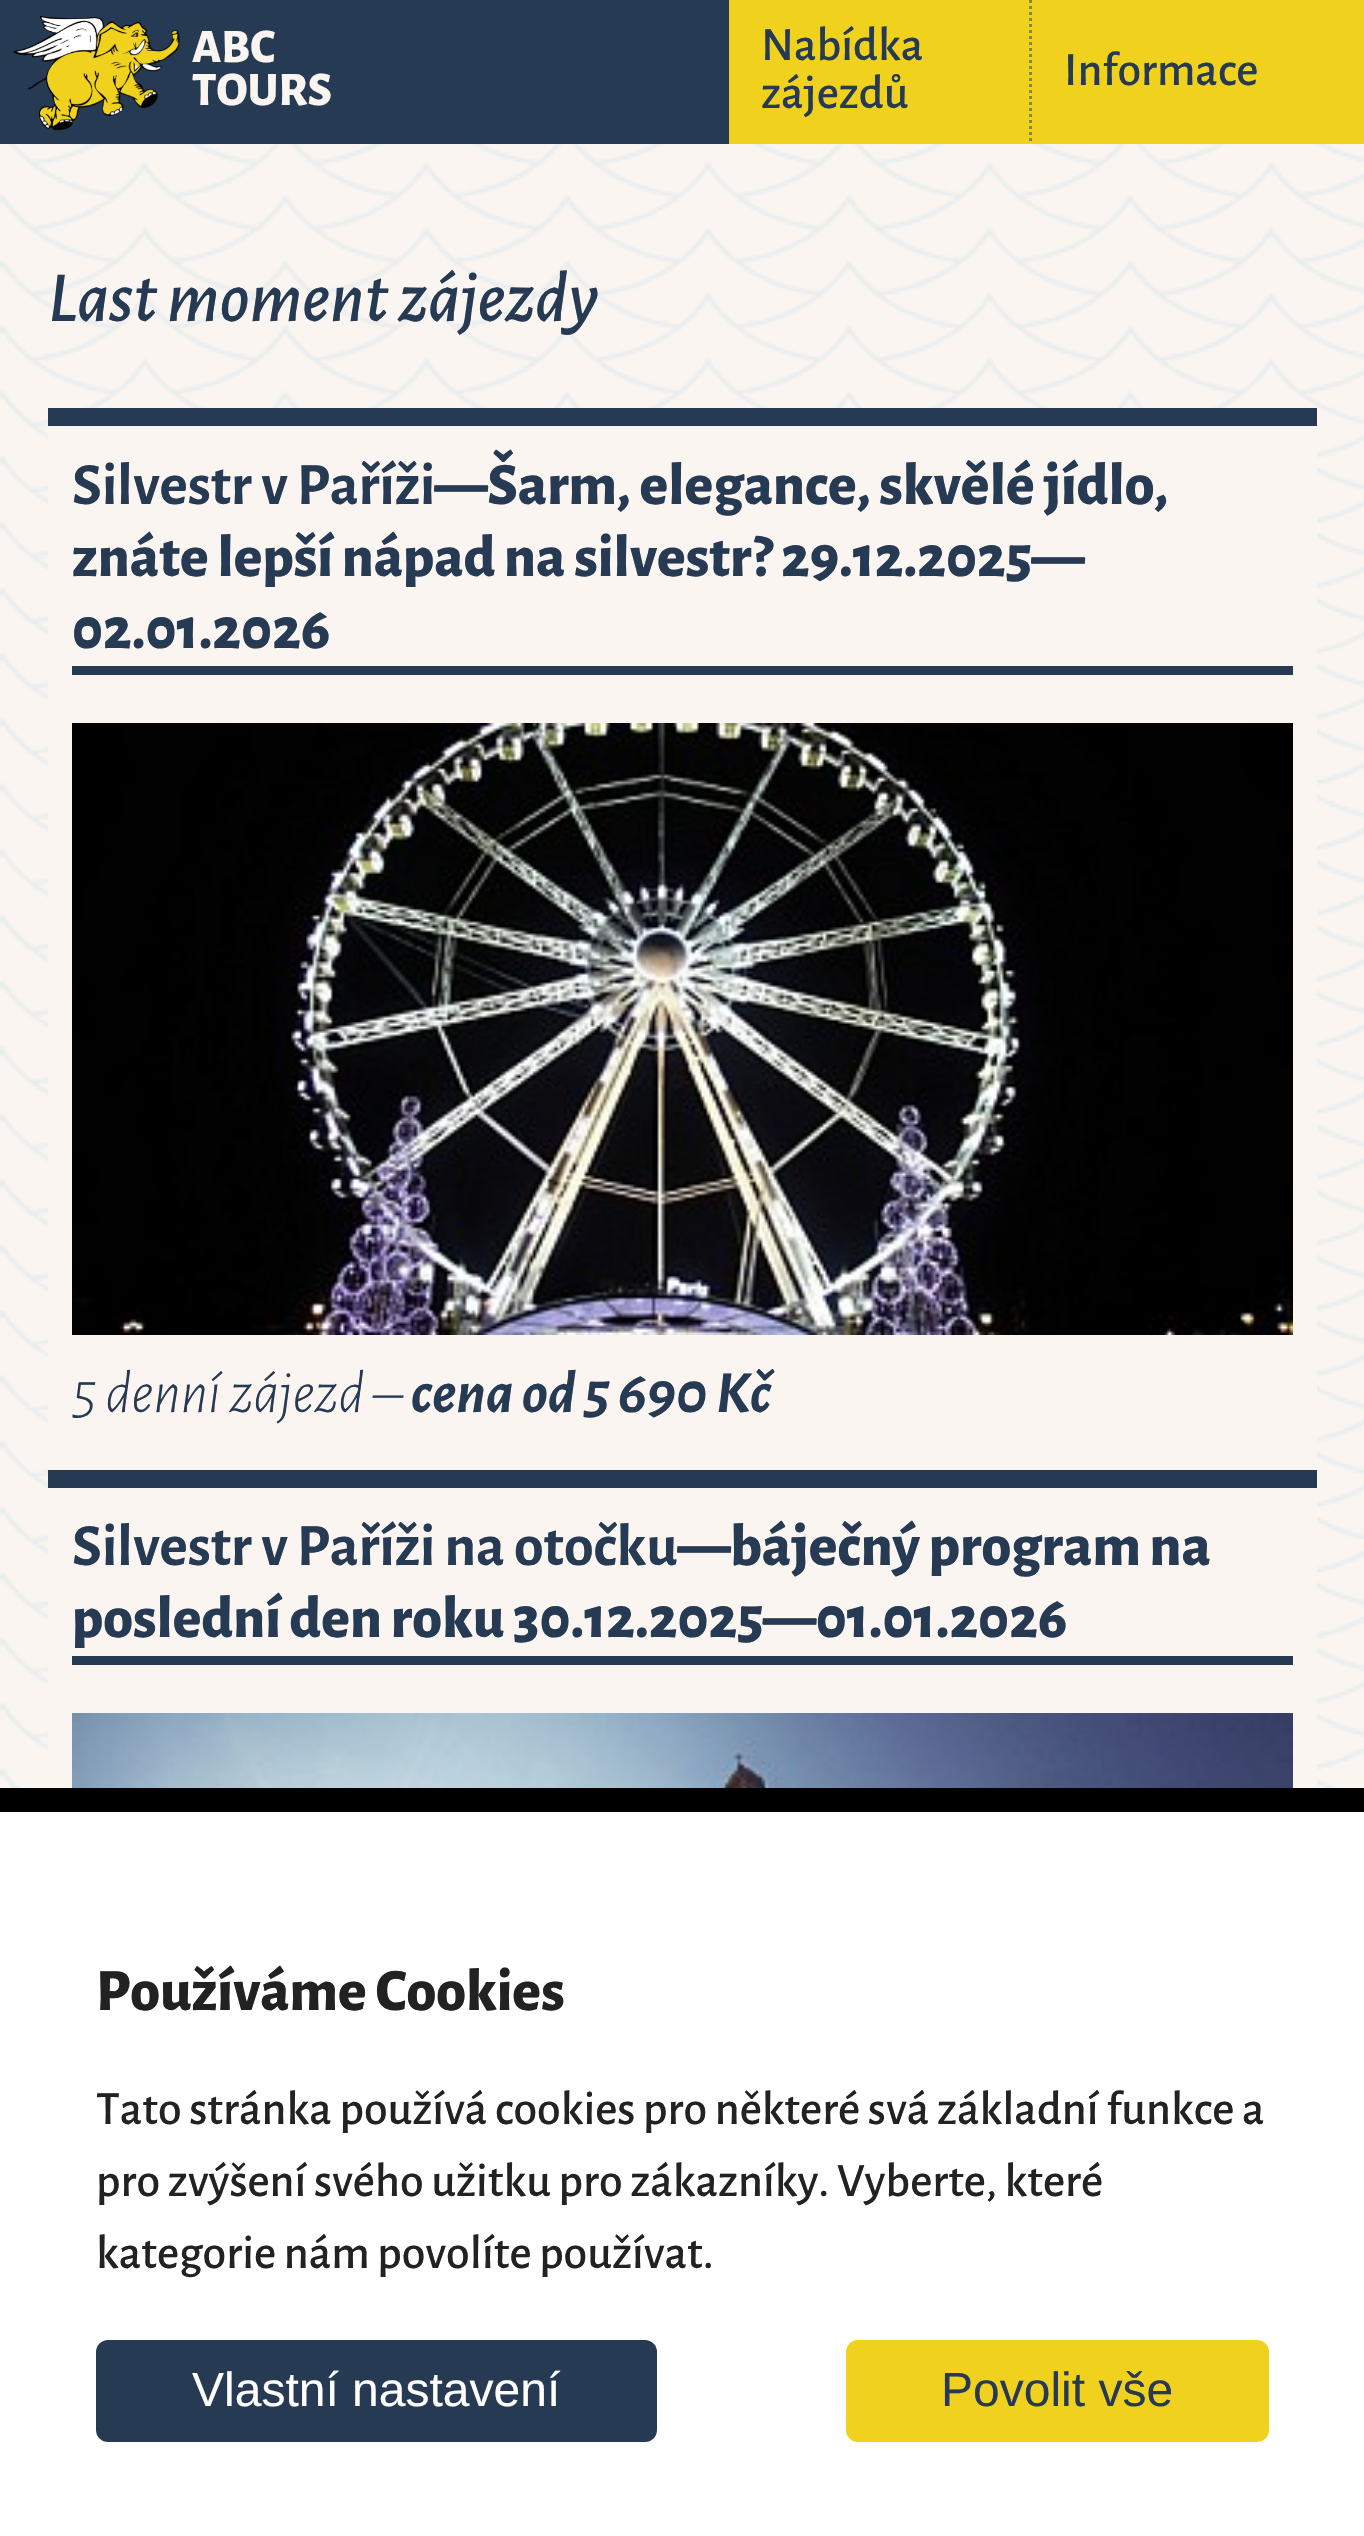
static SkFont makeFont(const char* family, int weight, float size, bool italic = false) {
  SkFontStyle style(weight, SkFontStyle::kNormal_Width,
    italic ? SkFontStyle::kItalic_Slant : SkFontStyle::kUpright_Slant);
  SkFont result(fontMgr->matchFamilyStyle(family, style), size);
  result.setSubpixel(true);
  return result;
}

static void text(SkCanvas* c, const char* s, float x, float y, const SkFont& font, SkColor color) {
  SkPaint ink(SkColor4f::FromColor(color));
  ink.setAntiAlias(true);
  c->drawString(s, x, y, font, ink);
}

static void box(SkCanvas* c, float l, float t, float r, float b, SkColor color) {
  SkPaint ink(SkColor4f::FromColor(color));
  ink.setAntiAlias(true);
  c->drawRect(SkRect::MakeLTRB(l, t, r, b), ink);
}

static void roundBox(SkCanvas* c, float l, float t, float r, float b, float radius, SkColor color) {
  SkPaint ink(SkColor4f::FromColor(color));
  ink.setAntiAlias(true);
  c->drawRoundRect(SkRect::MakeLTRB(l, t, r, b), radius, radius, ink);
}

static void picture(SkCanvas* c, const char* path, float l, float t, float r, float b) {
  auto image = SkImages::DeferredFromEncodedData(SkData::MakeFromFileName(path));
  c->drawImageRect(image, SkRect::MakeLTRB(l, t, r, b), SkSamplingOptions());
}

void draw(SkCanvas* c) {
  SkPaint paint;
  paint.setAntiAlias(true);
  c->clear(0xffffffff);
  picture(c, "img_01.png", 0, 144, 1364, 1788);
  box(c, 0, 0, 729, 144, 0xff273a54);
  picture(c, "img_02.png", 12, 15, 180, 131);
  SkFont face1 = makeFont("Alegreya Sans", 800, 48);
  text(c, "ABC", 192, 62, face1, 0xfffaf5f0);
  text(c, "TOURS", 192, 105, face1, 0xfffaf5f0);
  box(c, 729, 0, 1364, 144, 0xfff0d21e);
  paint.setStyle(SkPaint::kStroke_Style);
  paint.setStrokeWidth(3);
  paint.setColor(0xff878639);
  paint.setPathEffect(SkDashPathEffect::Make({{3, 3}}, 0));
  c->drawPath(SkPathBuilder().moveTo(1030.5f, 0).lineTo(1030.5f, 144).detach(), paint);
  paint.setPathEffect(nullptr);
  SkFont face2 = makeFont("Alegreya Sans", 500, 48);
  text(c, "Nabídka", 761, 60, face2, 0xff273a54);
  text(c, "zájezdů", 761, 108, face2, 0xff273a54);
  text(c, "Informace", 1064, 85, face2, 0xff273a54);
  SkFont face3 = makeFont("Alegreya Sans", 500, 72, true);
  text(c, "Last moment zájezdy", 48, 321, face3, 0xff273a54);
  box(c, 48, 426, 1317, 1470, 0xfffaf5f0);
  box(c, 48, 408, 1317, 426, 0xff273a54);
  box(c, 72, 666, 1293, 675, 0xff273a54);
  SkFont face4 = makeFont("Alegreya Sans", 700, 60);
  text(c, "Silvestr v Paříži", 72, 504, face4, 0xff273a54);
  SkFont face5 = makeFont("Alegreya Sans", 800, 60);
  text(c, "—Šarm, elegance, skvělé jídlo,", 435, 504, face5, 0xff273a54);
  text(c, "znáte lepší nápad na silvestr? 29.12.2025—", 72, 576, face5, 0xff273a54);
  text(c, "02.01.2026", 72, 648, face5, 0xff273a54);
  picture(c, "img_03.png", 72, 723, 1293, 1335);
  SkFont face6 = makeFont("Alegreya Sans", 300, 60, true);
  text(c, "5 denní zájezd –", 72, 1412, face6, 0xff273a54);
  SkFont face7 = makeFont("Alegreya Sans", 700, 60, true);
  text(c, "cena od 5 690 Kč", 411, 1412, face7, 0xff273a54);
  box(c, 48, 1488, 1317, 1788, 0xfffaf5f0);
  box(c, 48, 1470, 1317, 1488, 0xff273a54);
  box(c, 72, 1656, 1293, 1665, 0xff273a54);
  text(c, "Silvestr v Paříži na otočku", 72, 1565, face4, 0xff273a54);
  text(c, "—báječný program na", 678, 1565, face5, 0xff273a54);
  text(c, "poslední den roku 30.12.2025—01.01.2026", 72, 1637, face5, 0xff273a54);
  picture(c, "img_04.png", 72, 1713, 1293, 1788);
  box(c, 0, 1788, 1364, 1812, 0xff000000);
  text(c, "Používáme Cookies", 96, 2010, face5, 0xff222222);
  text(c, "Tato stránka používá cookies pro některé svá základní funkce a", 96, 2124, face2, 0xff222222);
  text(c, "pro zvýšení svého užitku pro zákazníky. Vyberte, které", 96, 2196, face2, 0xff222222);
  text(c, "kategorie nám povolíte používat.", 96, 2268, face2, 0xff222222);
  roundBox(c, 96, 2340, 657, 2442, 12, 0xff273a54);
  SkFont face8 = makeFont("Liberation Sans", 400, 48);
  text(c, "Vlastní nastavení", 192, 2406, face8, 0xffffffff);
  roundBox(c, 846, 2340, 1269, 2442, 12, 0xfff0d21e);
  text(c, "Povolit vše", 941, 2406, face8, 0xff273a54);
}
